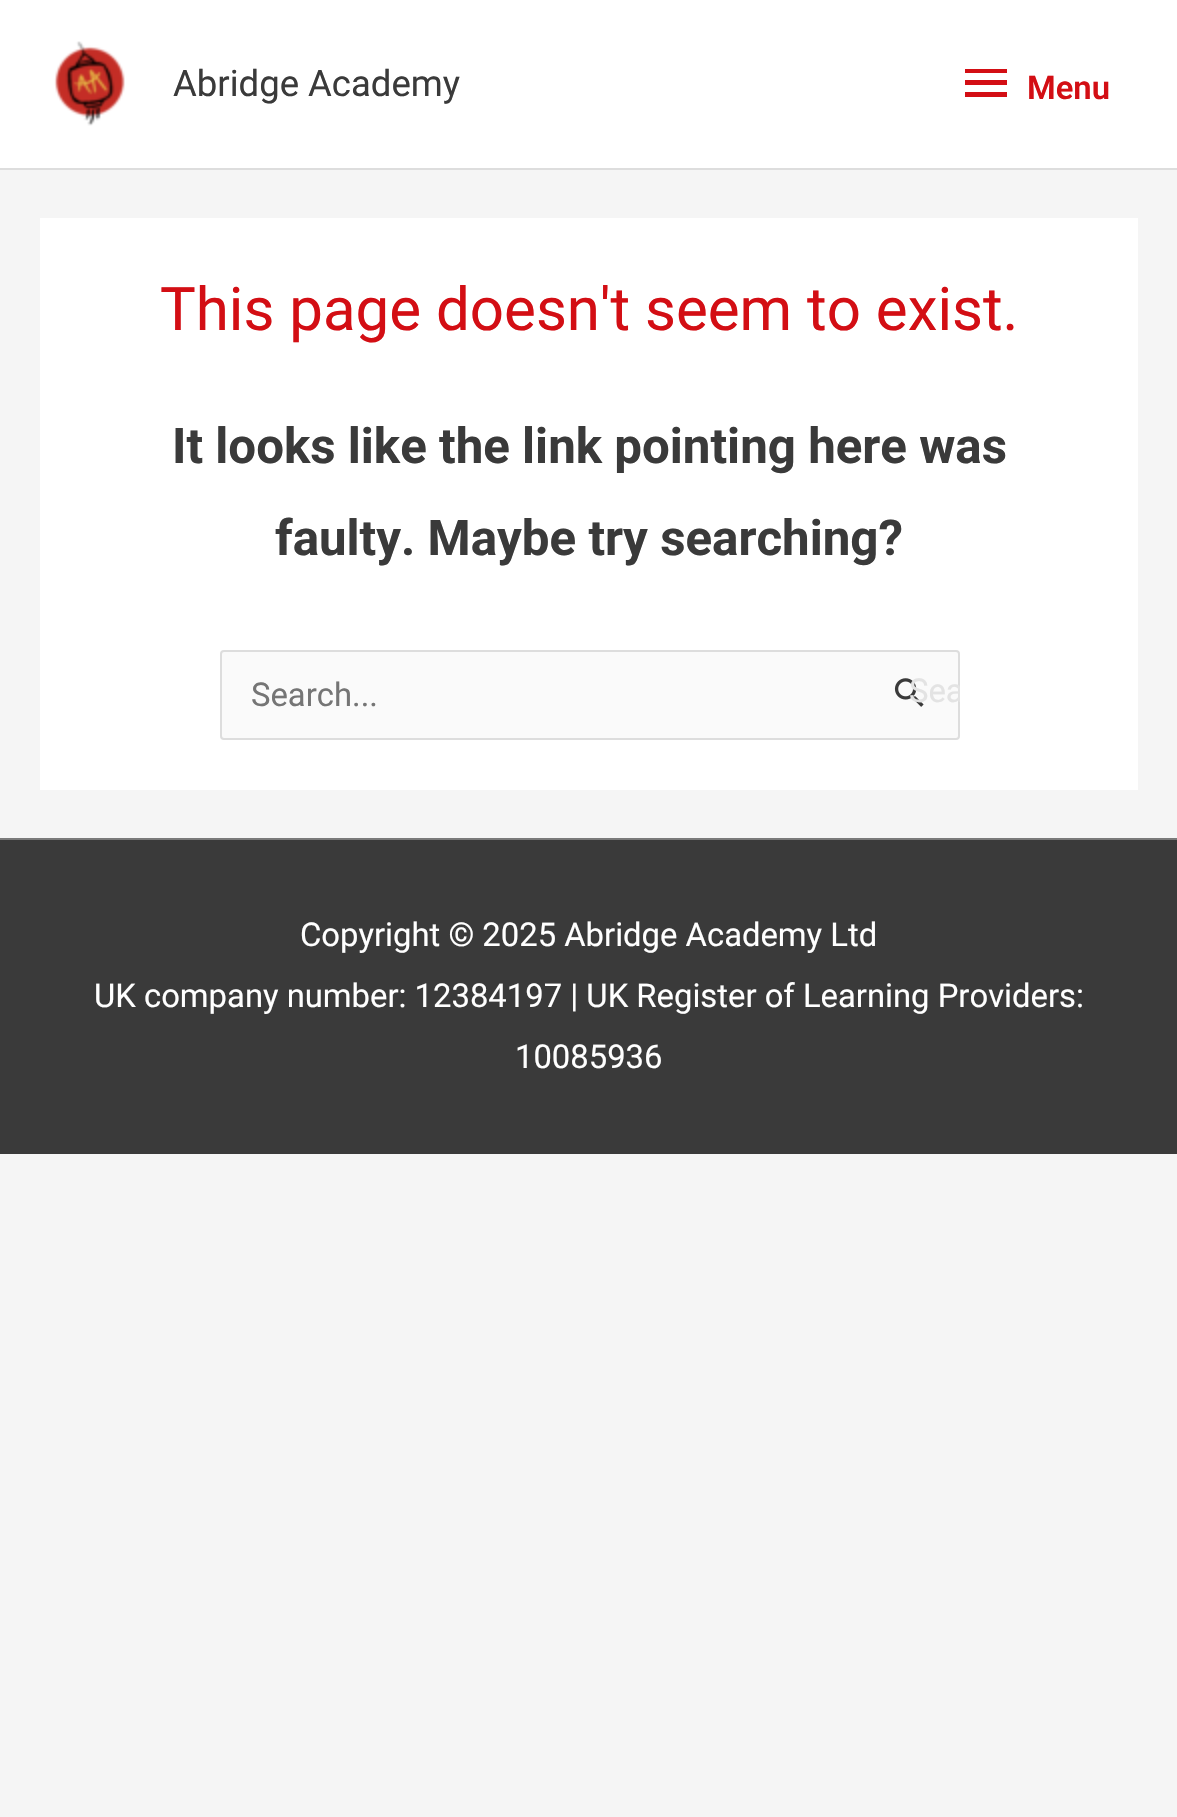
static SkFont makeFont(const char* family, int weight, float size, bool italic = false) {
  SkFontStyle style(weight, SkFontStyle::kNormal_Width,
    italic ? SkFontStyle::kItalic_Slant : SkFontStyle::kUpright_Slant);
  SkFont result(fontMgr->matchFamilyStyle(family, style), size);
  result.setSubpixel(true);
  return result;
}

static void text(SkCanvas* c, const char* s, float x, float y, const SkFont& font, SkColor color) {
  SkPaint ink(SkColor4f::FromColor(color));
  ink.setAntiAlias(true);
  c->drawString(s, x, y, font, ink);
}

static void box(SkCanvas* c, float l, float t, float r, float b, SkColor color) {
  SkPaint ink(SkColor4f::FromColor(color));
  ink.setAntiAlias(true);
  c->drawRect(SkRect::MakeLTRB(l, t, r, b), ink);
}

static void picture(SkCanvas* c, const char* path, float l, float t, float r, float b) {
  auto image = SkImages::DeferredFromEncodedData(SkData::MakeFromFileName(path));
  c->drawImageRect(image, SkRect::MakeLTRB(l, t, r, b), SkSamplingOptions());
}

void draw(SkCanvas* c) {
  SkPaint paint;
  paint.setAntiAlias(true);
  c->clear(0xfff5f5f5);
  box(c, 0, 0, 1177, 168, 0xffffffff);
  box(c, 0, 168, 1177, 170, 0xffdddddd);
  picture(c, "img_01.png", 54, 41, 125, 126);
  SkFont face1 = makeFont("Roboto", 400, 36.5f);
  text(c, "Abridge Academy", 173, 96, face1, 0xff3a3a3a);
  paint.setColor(0xffd30e14);
  c->drawPath(SkPathBuilder().moveTo(965, 69).lineTo(1007, 69).lineTo(1007, 73).lineTo(965, 73).close().moveTo(965, 85).lineTo(965, 80).lineTo(1007, 80).lineTo(1007, 85).close().moveTo(965, 97).lineTo(965, 92).lineTo(1007, 92).lineTo(1007, 97).close().detach(), paint);
  SkFont face2 = makeFont("Roboto", 600, 32.8f);
  text(c, "Menu", 1027, 99, face2, 0xffd30e14);
  box(c, 40, 218, 1138, 790, 0xffffffff);
  SkFont face3 = makeFont("Roboto", 400, 60);
  text(c, "This page doesn't seem to exist.", 160, 330, face3, 0xffd30e14);
  SkFont face4 = makeFont("Roboto", 700, 49.25f);
  text(c, "It looks like the link pointing here was", 172, 463, face4, 0xff3a3a3a);
  text(c, "faulty. Maybe try searching?", 275, 555, face4, 0xff3a3a3a);
  paint.setColor(0xfffafafa);
  c->drawRoundRect(SkRect::MakeLTRB(221, 651, 959, 739), 3, 3, paint);
  paint.setStyle(SkPaint::kStroke_Style);
  paint.setStrokeWidth(2);
  paint.setColor(0xffdddddd);
  c->drawRoundRect(SkRect::MakeLTRB(221, 651, 959, 739), 3, 3, paint);
  SkFont face5 = makeFont("Roboto", 400, 32.8f);
  text(c, "Search...", 251, 706, face5, 0xff757575);
  picture(c, "img_02.png", 894, 678, 924, 707);
  c->save();
  c->clipPath(SkPathBuilder().moveTo(874, 650).lineTo(956, 650).cubicTo(958, 650, 960, 652, 960, 654).lineTo(960, 730).cubicTo(960, 732, 958, 734, 956, 734).lineTo(874, 734).cubicTo(872, 734, 870, 732, 870, 730).lineTo(870, 654).cubicTo(870, 652, 872, 650, 874, 650).close().detach(), true);
  text(c, "Sea", 909, 702, face5, 0xffe3e3e3);
  c->restore();
  box(c, 0, 838, 1177, 840, 0xff7a7a7a);
  box(c, 0, 840, 1177, 1154, 0xff3a3a3a);
  text(c, "Copyright © 2025 Abridge Academy Ltd", 300, 946, face5, 0xffffffff);
  text(c, "UK company number: 12384197 | UK Register of Learning Providers:", 94, 1007, face5, 0xffffffff);
  text(c, "10085936", 515, 1068, face5, 0xffffffff);
}
